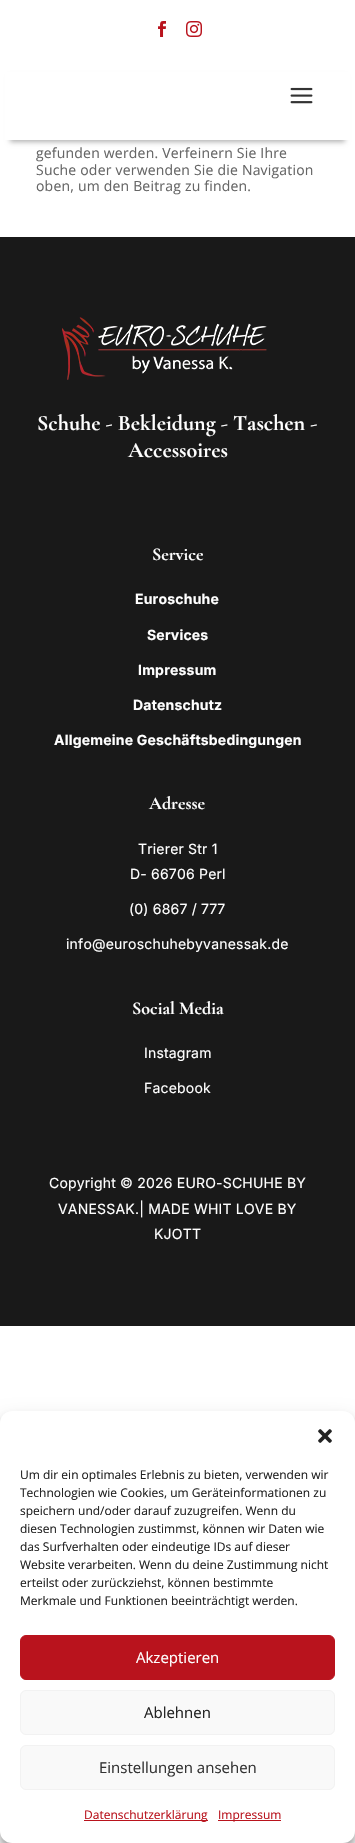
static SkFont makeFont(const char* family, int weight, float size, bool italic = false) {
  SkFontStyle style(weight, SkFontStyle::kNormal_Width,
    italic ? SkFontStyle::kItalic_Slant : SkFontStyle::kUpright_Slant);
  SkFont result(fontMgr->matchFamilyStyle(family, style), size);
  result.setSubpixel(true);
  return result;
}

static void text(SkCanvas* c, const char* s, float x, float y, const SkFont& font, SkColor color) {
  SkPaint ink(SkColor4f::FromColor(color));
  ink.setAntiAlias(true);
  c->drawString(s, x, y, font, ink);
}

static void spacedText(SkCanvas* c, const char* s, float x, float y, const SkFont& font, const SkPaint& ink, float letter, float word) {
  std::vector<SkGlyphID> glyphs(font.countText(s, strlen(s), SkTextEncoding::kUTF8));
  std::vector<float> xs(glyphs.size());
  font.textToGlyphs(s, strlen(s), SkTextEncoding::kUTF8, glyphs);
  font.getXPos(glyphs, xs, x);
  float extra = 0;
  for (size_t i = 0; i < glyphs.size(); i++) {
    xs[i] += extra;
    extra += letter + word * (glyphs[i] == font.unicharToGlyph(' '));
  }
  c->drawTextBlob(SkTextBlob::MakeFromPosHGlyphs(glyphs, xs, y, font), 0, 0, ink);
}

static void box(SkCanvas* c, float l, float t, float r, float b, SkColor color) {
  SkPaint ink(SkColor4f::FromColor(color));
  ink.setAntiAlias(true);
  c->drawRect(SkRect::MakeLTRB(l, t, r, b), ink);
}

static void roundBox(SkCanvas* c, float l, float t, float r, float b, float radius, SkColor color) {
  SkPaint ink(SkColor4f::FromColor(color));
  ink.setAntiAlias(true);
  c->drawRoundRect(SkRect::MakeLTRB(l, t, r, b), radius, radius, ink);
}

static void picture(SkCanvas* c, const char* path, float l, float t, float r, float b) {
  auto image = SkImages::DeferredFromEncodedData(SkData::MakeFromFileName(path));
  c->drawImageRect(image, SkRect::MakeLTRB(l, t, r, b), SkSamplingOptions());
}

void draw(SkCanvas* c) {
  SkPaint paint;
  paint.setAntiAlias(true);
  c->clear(0xffffffff);
  picture(c, "img_01.png", 158, 21, 166, 37);
  picture(c, "img_02.png", 186, 21, 202, 37);
  paint.setColor(0x4d000000);
  paint.setMaskFilter(SkMaskFilter::MakeBlur(kNormal_SkBlurStyle, 2.5f));
  c->drawRect(SkRect::MakeLTRB(10, 77, 345, 142), paint);
  paint.setMaskFilter(nullptr);
  box(c, 5, 72, 350, 140, 0xffffffff);
  picture(c, "img_03.png", 290, 87, 313, 104);
  SkFont face1 = makeFont("Open Sans", 400, 14);
  paint.setColor(0xff666666);
  spacedText(c, "gefunden werden. Verfeinern Sie Ihre", 36, 158, face1, paint, 0.2f, 0);
  spacedText(c, "Suche oder verwenden Sie die Navigation", 36, 175, face1, paint, 0.2f, 0);
  spacedText(c, "oben, um den Beitrag zu finden.", 36, 191, face1, paint, 0.2f, 0);
  box(c, 0, 237, 355, 1326, 0xff191919);
  picture(c, "img_04.png", 62, 317, 267, 380);
  SkFont face2 = makeFont("Cormorant Garamond", 700, 22);
  text(c, "Schuhe - Bekleidung - Taschen -", 37, 430, face2, 0xffffffff);
  text(c, "Accessoires", 128, 457, face2, 0xffffffff);
  SkFont face3 = makeFont("Cormorant Garamond", 700, 18);
  text(c, "Service", 152, 560, face3, 0xffffffff);
  SkFont face4 = makeFont("Inter", 700, 14);
  paint.setColor(0xffffffff);
  spacedText(c, "Euroschuhe", 135, 604, face4, paint, 0.2f, 0);
  spacedText(c, "Services", 147, 640, face4, paint, 0.2f, 0);
  spacedText(c, "Impressum", 138, 675, face4, paint, 0.2f, 0);
  spacedText(c, "Datenschutz", 133, 710, face4, paint, 0.2f, 0);
  spacedText(c, "Allgemeine Geschäftsbedingungen", 54, 745, face4, paint, 0.2f, 0);
  text(c, "Adresse", 149, 809, face3, 0xffffffff);
  SkFont face5 = makeFont("Inter", 400, 14);
  spacedText(c, "Trierer Str 1", 138, 854, face5, paint, 0.2f, 0);
  spacedText(c, "D- 66706 Perl", 130, 879, face5, paint, 0.2f, 0);
  spacedText(c, "(0) 6867 / 777", 129, 914, face5, paint, 0.2f, 0);
  spacedText(c, "info@euroschuhebyvanessak.de", 66, 949, face5, paint, 0.2f, 0);
  text(c, "Social Media", 132, 1014, face3, 0xffffffff);
  spacedText(c, "Instagram", 144, 1058, face5, paint, 0.2f, 0);
  spacedText(c, "Facebook", 144, 1093, face5, paint, 0.2f, 0);
  spacedText(c, "Copyright © 2026 EURO-SCHUHE BY", 49, 1188, face5, paint, 0.2f, 0);
  spacedText(c, "VANESSAK.| MADE WHIT LOVE BY", 58, 1214, face5, paint, 0.2f, 0);
  spacedText(c, "KJOTT", 154, 1239, face5, paint, 0.2f, 0);
  paint.setColor(0x3b000000);
  paint.setMaskFilter(SkMaskFilter::MakeBlur(kNormal_SkBlurStyle, 3));
  c->drawRoundRect(SkRect::MakeLTRB(0, 1417, 355, 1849), 12, 12, paint);
  paint.setMaskFilter(nullptr);
  paint.setColor(0x30000000);
  paint.setMaskFilter(SkMaskFilter::MakeBlur(kNormal_SkBlurStyle, 10));
  c->drawRoundRect(SkRect::MakeLTRB(0, 1421, 355, 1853), 12, 12, paint);
  paint.setMaskFilter(nullptr);
  roundBox(c, 0, 1411, 355, 1843, 12, 0xffffffff);
  picture(c, "img_05.png", 318, 1429, 332, 1443);
  SkFont face6 = makeFont("Open Sans", 400, 12);
  text(c, "Um dir ein optimales Erlebnis zu bieten, verwenden wir", 20, 1479, face6, 0xff222222);
  text(c, "Technologien wie Cookies, um Geräteinformationen zu", 20, 1497, face6, 0xff222222);
  text(c, "speichern und/oder darauf zuzugreifen. Wenn du", 20, 1515, face6, 0xff222222);
  text(c, "diesen Technologien zustimmst, können wir Daten wie", 20, 1533, face6, 0xff222222);
  text(c, "das Surfverhalten oder eindeutige IDs auf dieser", 20, 1551, face6, 0xff222222);
  text(c, "Website verarbeiten. Wenn du deine Zustimmung nicht", 20, 1569, face6, 0xff222222);
  text(c, "erteilst oder zurückziehst, können bestimmte", 20, 1587, face6, 0xff222222);
  text(c, "Merkmale und Funktionen beeinträchtigt werden.", 20, 1605, face6, 0xff222222);
  paint.setColor(0xffb9131d);
  c->drawRoundRect(SkRect::MakeLTRB(20.5f, 1635.5f, 334.5f, 1679.5f), 5.5f, 5.5f, paint);
  paint.setStyle(SkPaint::kStroke_Style);
  paint.setStrokeWidth(1);
  c->drawRoundRect(SkRect::MakeLTRB(20.5f, 1635.5f, 334.5f, 1679.5f), 5.5f, 5.5f, paint);
  SkFont face7 = makeFont("Open Sans", 400, 15);
  text(c, "Akzeptieren", 136, 1663, face7, 0xffffffff);
  paint.setStyle(SkPaint::kFill_Style);
  paint.setColor(0xfff9f9f9);
  c->drawRoundRect(SkRect::MakeLTRB(20.5f, 1690.5f, 334.5f, 1734.5f), 5.5f, 5.5f, paint);
  paint.setStyle(SkPaint::kStroke_Style);
  paint.setColor(0xfff2f2f2);
  c->drawRoundRect(SkRect::MakeLTRB(20.5f, 1690.5f, 334.5f, 1734.5f), 5.5f, 5.5f, paint);
  text(c, "Ablehnen", 144, 1718, face7, 0xff222222);
  paint.setStyle(SkPaint::kFill_Style);
  paint.setColor(0xfff9f9f9);
  c->drawRoundRect(SkRect::MakeLTRB(20.5f, 1745.5f, 334.5f, 1789.5f), 5.5f, 5.5f, paint);
  paint.setStyle(SkPaint::kStroke_Style);
  paint.setColor(0xfff2f2f2);
  c->drawRoundRect(SkRect::MakeLTRB(20.5f, 1745.5f, 334.5f, 1789.5f), 5.5f, 5.5f, paint);
  text(c, "Einstellungen ansehen", 99, 1773, face7, 0xff333333);
  box(c, 84, 1820, 208, 1821, 0xffb9131d);
  text(c, "Datenschutzerklärung", 84, 1819, face6, 0xffb9131d);
  box(c, 218, 1820, 281, 1821, 0xffb9131d);
  text(c, "Impressum", 218, 1819, face6, 0xffb9131d);
}
